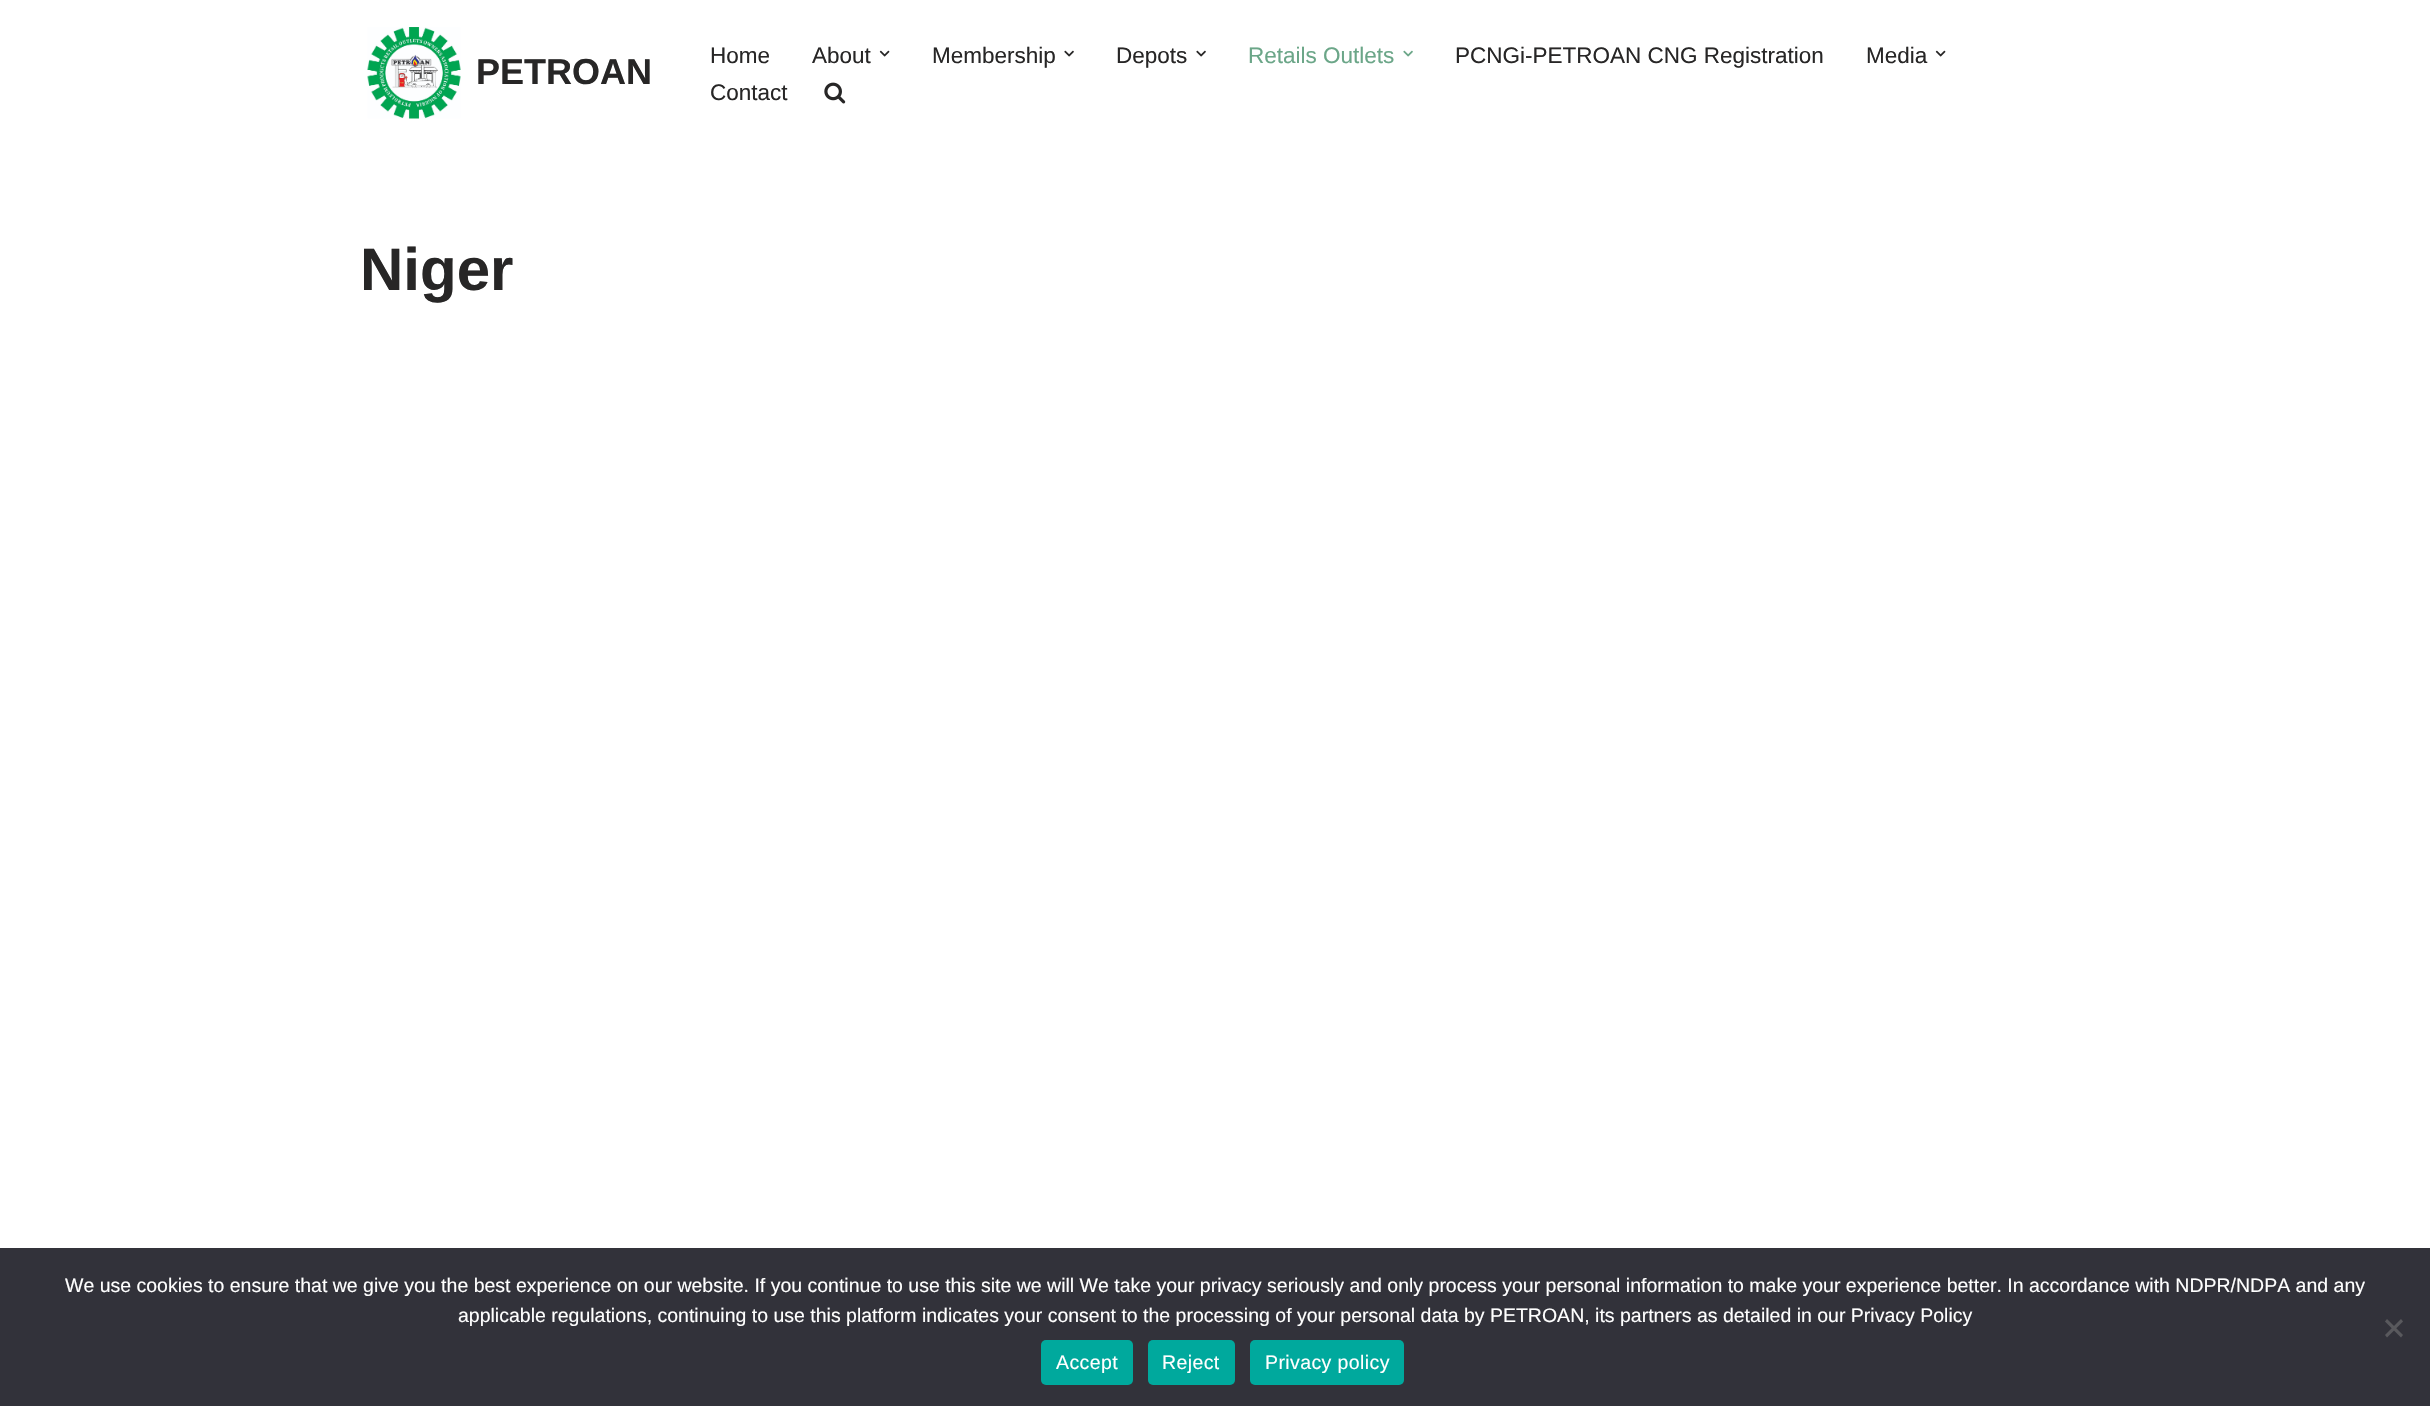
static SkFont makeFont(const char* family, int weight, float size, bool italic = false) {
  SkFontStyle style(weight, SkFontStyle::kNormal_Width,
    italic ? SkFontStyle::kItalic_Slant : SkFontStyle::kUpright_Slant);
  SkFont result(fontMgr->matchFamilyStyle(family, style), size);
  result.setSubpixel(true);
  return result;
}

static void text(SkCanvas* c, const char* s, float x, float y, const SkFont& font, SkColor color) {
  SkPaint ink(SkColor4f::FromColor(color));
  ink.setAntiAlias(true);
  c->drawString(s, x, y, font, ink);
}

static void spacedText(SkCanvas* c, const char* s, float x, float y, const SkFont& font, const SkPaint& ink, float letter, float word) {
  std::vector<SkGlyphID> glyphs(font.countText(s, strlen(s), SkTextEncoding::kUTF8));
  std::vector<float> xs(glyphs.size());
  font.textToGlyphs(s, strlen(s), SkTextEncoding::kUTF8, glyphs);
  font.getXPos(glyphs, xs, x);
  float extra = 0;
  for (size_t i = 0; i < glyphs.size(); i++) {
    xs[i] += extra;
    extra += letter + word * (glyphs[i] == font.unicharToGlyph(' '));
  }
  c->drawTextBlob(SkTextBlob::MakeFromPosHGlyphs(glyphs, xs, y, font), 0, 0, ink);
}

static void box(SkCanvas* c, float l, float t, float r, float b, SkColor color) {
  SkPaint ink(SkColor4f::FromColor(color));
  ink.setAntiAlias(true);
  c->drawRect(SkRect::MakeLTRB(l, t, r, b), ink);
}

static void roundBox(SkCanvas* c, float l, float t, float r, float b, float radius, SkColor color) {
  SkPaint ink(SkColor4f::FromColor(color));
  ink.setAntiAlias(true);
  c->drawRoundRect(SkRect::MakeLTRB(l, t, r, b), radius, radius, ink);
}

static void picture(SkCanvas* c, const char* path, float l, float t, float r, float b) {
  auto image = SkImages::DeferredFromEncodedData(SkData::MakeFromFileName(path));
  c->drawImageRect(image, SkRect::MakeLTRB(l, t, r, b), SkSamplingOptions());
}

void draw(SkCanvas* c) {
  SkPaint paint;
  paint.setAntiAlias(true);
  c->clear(0xffffffff);
  picture(c, "img_01.png", 367, 27, 461, 119);
  SkFont face1 = makeFont("Liberation Sans", 700, 36);
  text(c, "PETROAN", 476, 84, face1, 0xff272626);
  SkFont face2 = makeFont("Liberation Sans", 400, 22.5f);
  text(c, "Home", 710, 63, face2, 0xff272626);
  text(c, "About", 812, 63, face2, 0xff272626);
  picture(c, "img_02.png", 879, 50, 890, 57);
  text(c, "Membership", 932, 63, face2, 0xff272626);
  picture(c, "img_03.png", 1064, 50, 1074, 57);
  text(c, "Depots", 1116, 63, face2, 0xff272626);
  picture(c, "img_03.png", 1196, 50, 1206, 57);
  text(c, "Retails Outlets", 1248, 63, face2, 0xff6ba688);
  picture(c, "img_04.png", 1403, 50, 1413, 57);
  text(c, "PCNGi-PETROAN CNG Registration", 1455, 63, face2, 0xff272626);
  text(c, "Media", 1866, 63, face2, 0xff272626);
  picture(c, "img_02.png", 1935, 50, 1946, 57);
  text(c, "Contact", 710, 100, face2, 0xff272626);
  picture(c, "img_05.png", 824, 82, 846, 104);
  SkFont face3 = makeFont("Liberation Sans", 700, 60);
  text(c, "Niger", 360, 290, face3, 0xff272626);
  box(c, 0, 1248, 2430, 1406, 0xff32323a);
  SkFont face4 = makeFont("Liberation Sans", 400, 19.5f);
  text(c, "We use cookies to ensure that we give you the best experience on our website. If you continue to use this site we will We take your privacy seriously and only process your personal information to make your experience better. In accordance with NDPR/NDPA and any", 65, 1292, face4, 0xffffffff);
  text(c, "applicable regulations, continuing to use this platform indicates your consent to the processing of your personal data by PETROAN, its partners as detailed in our Privacy Policy", 458, 1322, face4, 0xffffffff);
  paint.setColor(0xff59595d);
  c->drawPath(SkPathBuilder().moveTo(2401, 1319).lineTo(2403, 1321.5f).lineTo(2387, 1337.5f).lineTo(2385, 1335).close().detach(), paint);
  c->drawPath(SkPathBuilder().moveTo(2385, 1321.5f).lineTo(2387, 1319).lineTo(2403, 1335).lineTo(2401, 1337.5f).close().detach(), paint);
  roundBox(c, 1041, 1340, 1133, 1385, 5, 0xff00a99d);
  paint.setColor(0xffffffff);
  spacedText(c, "Accept", 1056, 1369, face4, paint, 0.4f, 0);
  roundBox(c, 1148, 1340, 1235, 1385, 5, 0xff00a99d);
  spacedText(c, "Reject", 1162, 1369, face4, paint, 0.4f, 0);
  roundBox(c, 1250, 1340, 1404, 1385, 5, 0xff00a99d);
  spacedText(c, "Privacy policy", 1265, 1369, face4, paint, 0.4f, 0);
}
